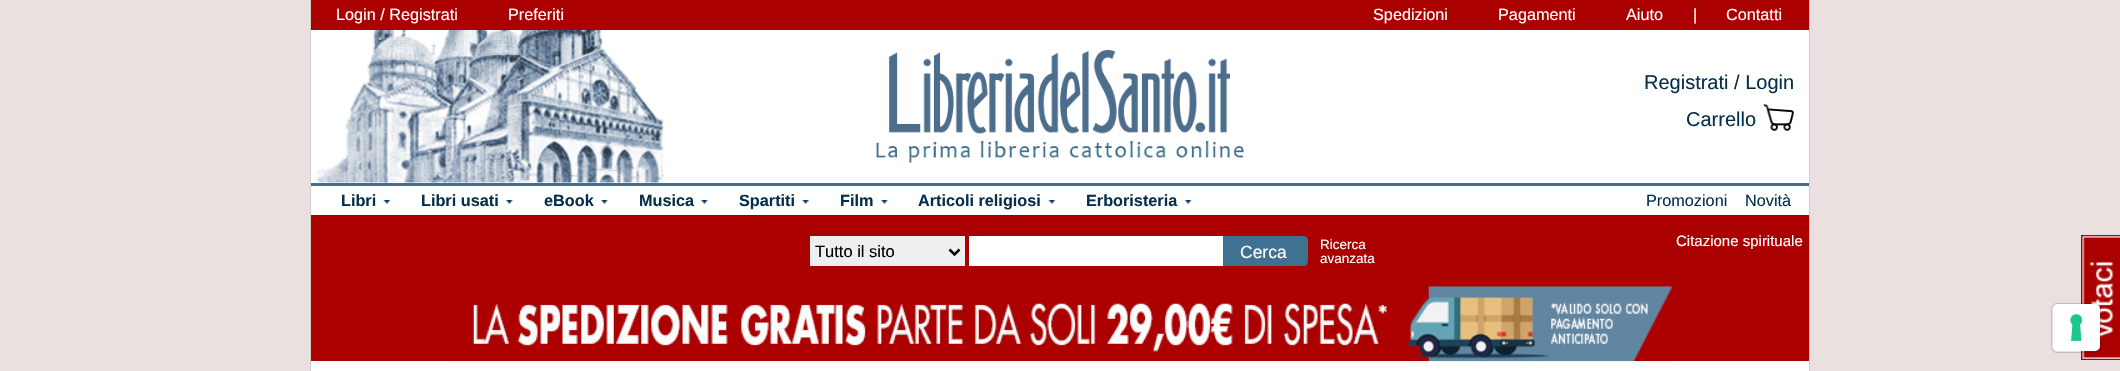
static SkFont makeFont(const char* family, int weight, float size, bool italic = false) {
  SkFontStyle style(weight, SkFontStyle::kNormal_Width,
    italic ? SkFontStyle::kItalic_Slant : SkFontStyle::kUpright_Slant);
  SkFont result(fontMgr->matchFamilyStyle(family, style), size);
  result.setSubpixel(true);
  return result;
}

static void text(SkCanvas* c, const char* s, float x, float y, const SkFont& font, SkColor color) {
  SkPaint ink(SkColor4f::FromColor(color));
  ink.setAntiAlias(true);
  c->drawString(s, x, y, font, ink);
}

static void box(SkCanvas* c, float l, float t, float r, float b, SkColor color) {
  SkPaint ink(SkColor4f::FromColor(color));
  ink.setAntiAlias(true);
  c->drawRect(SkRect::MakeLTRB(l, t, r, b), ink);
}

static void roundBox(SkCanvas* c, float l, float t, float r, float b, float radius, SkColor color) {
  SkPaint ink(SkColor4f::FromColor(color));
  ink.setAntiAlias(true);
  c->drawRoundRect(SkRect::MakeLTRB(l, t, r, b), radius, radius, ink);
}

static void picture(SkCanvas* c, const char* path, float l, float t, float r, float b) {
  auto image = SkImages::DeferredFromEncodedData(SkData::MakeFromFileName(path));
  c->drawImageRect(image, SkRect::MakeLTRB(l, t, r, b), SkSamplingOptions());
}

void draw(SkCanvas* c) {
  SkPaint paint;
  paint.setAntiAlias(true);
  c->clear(0xffeae0e0);
  box(c, 311, 30, 1809, 215, 0xffffffff);
  box(c, 1809, 0, 1810, 371, 0xffd4cccc);
  box(c, 310, 0, 311, 371, 0xffd4cccc);
  picture(c, "img_01.png", 315, 30, 664, 183);
  box(c, 311, 0, 1809, 30, 0xffab0000);
  SkFont face1 = makeFont("Liberation Sans", 400, 16.25f);
  text(c, "Login / Registrati", 336, 20, face1, 0xffffffff);
  text(c, "Preferiti", 508, 20, face1, 0xffffffff);
  text(c, "Spedizioni", 1373, 20, face1, 0xffffffff);
  text(c, "Pagamenti", 1498, 20, face1, 0xffffffff);
  text(c, "Aiuto", 1626, 20, face1, 0xffffffff);
  text(c, "|", 1693, 20, face1, 0xffffffff);
  text(c, "Contatti", 1726, 20, face1, 0xffffffff);
  picture(c, "img_02.png", 876, 50, 1244, 163);
  SkFont face2 = makeFont("Liberation Sans", 400, 20);
  text(c, "Registrati / Login", 1644, 89, face2, 0xff042f4a);
  text(c, "Carrello", 1686, 126, face2, 0xff042f4a);
  picture(c, "img_03.png", 1763, 104, 1794, 131);
  box(c, 311, 183, 1809, 186, 0xff3f7190);
  picture(c, "img_04.png", 383, 200, 391, 204);
  SkFont face3 = makeFont("Liberation Sans", 700, 16.25f);
  text(c, "Libri", 341, 206, face3, 0xff042f4a);
  picture(c, "img_05.png", 506, 200, 513, 204);
  text(c, "Libri usati", 421, 206, face3, 0xff042f4a);
  picture(c, "img_05.png", 601, 200, 608, 204);
  text(c, "eBook", 544, 206, face3, 0xff042f4a);
  picture(c, "img_06.png", 701, 200, 708, 204);
  text(c, "Musica", 639, 206, face3, 0xff042f4a);
  picture(c, "img_07.png", 802, 200, 809, 204);
  text(c, "Spartiti", 739, 206, face3, 0xff042f4a);
  picture(c, "img_06.png", 881, 200, 888, 204);
  text(c, "Film", 840, 206, face3, 0xff042f4a);
  picture(c, "img_04.png", 1048, 200, 1056, 204);
  text(c, "Articoli religiosi", 918, 206, face3, 0xff042f4a);
  picture(c, "img_08.png", 1184, 200, 1192, 204);
  text(c, "Erboristeria", 1086, 206, face3, 0xff042f4a);
  text(c, "Promozioni", 1646, 206, face1, 0xff042f4a);
  text(c, "Novità", 1745, 206, face1, 0xff042f4a);
  box(c, 311, 216, 1809, 361, 0xffab0000);
  box(c, 311, 215, 1809, 216, 0xff990000);
  box(c, 810, 236, 965, 266, 0xffefefef);
  paint.setStyle(SkPaint::kStroke_Style);
  paint.setStrokeWidth(2.5f);
  paint.setColor(0xff000000);
  c->drawPath(SkPathBuilder().moveTo(949.5f, 249.5f).lineTo(954.5f, 254.5f).lineTo(959.5f, 249.5f).detach(), paint);
  SkFont face4 = makeFont("Liberation Sans", 400, 16.5f);
  text(c, "Tutto il sito", 815, 257, face4, 0xff000000);
  paint.setStyle(SkPaint::kFill_Style);
  paint.setColor(0xff3f7190);
  c->drawPath(SkPathBuilder().moveTo(1221, 236).lineTo(1303, 236).cubicTo(1306, 236, 1308, 238, 1308, 241).lineTo(1308, 261).cubicTo(1308, 264, 1306, 266, 1303, 266).lineTo(1221, 266).close().detach(), paint);
  box(c, 969, 236, 1223, 266, 0xffffffff);
  SkFont face5 = makeFont("Liberation Sans", 400, 17.5f);
  text(c, "Cerca", 1240, 258, face5, 0xffffffff);
  SkFont face6 = makeFont("Liberation Sans", 400, 13.5f);
  text(c, "Ricerca", 1320, 249, face6, 0xffffffff);
  text(c, "avanzata", 1320, 263, face6, 0xffffffff);
  SkFont face7 = makeFont("Liberation Sans", 400, 15);
  text(c, "Citazione spirituale", 1676, 246, face7, 0xffffffff);
  box(c, 311, 361, 1809, 371, 0xffffffff);
  picture(c, "img_09.png", 447, 286, 1673, 362);
  box(c, 2081, 235, 2120, 360, 0xffab0000);
  picture(c, "img_10.png", 2082, 236, 2120, 359);
  paint.setStyle(SkPaint::kStroke_Style);
  paint.setStrokeWidth(1);
  paint.setColor(0x26000000);
  c->drawRoundRect(SkRect::MakeLTRB(2051.5f, 303.5f, 2100.5f, 352.5f), 5.5f, 5.5f, paint);
  roundBox(c, 2053, 304, 2100, 351, 5, 0xffffffff);
  picture(c, "img_11.png", 2070, 314, 2083, 341);
}
